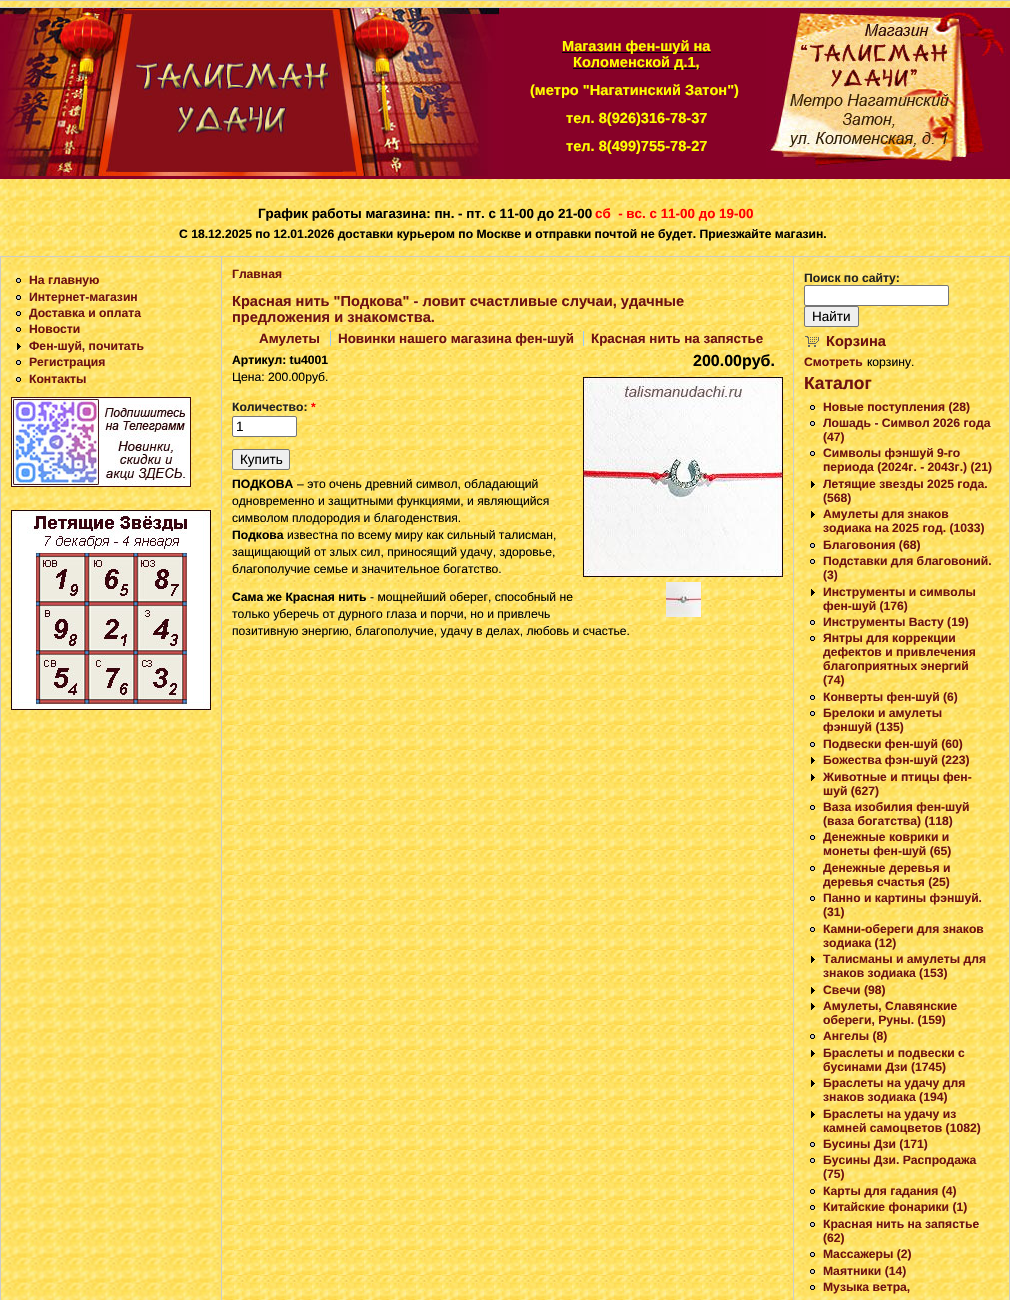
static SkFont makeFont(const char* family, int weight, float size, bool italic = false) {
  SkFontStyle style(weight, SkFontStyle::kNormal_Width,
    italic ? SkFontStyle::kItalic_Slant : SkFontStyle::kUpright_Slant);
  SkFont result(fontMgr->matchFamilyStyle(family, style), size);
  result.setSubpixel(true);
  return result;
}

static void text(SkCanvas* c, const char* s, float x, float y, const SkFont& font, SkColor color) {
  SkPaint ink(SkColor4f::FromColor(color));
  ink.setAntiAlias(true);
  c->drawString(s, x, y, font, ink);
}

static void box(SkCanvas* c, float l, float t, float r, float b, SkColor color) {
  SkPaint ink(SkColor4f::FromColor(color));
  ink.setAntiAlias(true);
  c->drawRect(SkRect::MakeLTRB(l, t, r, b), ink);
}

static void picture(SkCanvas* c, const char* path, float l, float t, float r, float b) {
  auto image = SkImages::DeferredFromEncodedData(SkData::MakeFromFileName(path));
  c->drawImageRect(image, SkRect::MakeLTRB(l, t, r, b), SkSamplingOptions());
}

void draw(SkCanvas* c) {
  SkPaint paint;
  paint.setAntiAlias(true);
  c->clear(0xffffffff);
  picture(c, "img_01.png", 222, 257, 793, 1300);
  picture(c, "img_02.png", 0, 0, 1010, 256);
  box(c, 0, 7, 1010, 8, 0xffcccccc);
  box(c, 0, 8, 1010, 179, 0xff870128);
  picture(c, "img_03.png", 0, 8, 504, 176);
  box(c, 562, 52, 711, 53, 0xff000000);
  SkFont face1 = makeFont("Liberation Sans", 700, 14.6f);
  text(c, "Магазин фен-шуй на", 562, 51, face1, 0xffffff00);
  box(c, 573, 68, 700, 69, 0xff000000);
  text(c, "Коломенской д.1,", 573, 67, face1, 0xffffff00);
  text(c, "(метро \"Нагатинский Затон\")", 530, 95, face1, 0xffffff00);
  text(c, "тел. 8(926)316-78-37", 566, 123, face1, 0xffffff00);
  text(c, "тел. 8(499)755-78-27", 566, 151, face1, 0xffffff00);
  picture(c, "img_04.png", 766, 8, 1006, 168);
  SkFont face2 = makeFont("Liberation Sans", 700, 13.4f);
  text(c, "График работы магазина: пн. - пт. с 11-00 до 21-00", 258, 218, face2, 0xff000000);
  text(c, "сб  - вс. с 11-00 до 19-00", 595, 218, face2, 0xffff0000);
  SkFont face3 = makeFont("Liberation Sans", 700, 12.15f);
  text(c, "С 18.12.2025 по 12.01.2026 доставки курьером по Москве и отправки почтой не будет. Приезжайте магазин.", 179, 238, face3, 0xff000000);
  box(c, 0, 256, 1010, 257, 0xffcccccc);
  picture(c, "img_05.png", 1, 257, 221, 1300);
  box(c, 221, 256, 222, 1300, 0xffcccccc);
  box(c, 0, 256, 1, 1300, 0xffcccccc);
  picture(c, "img_06.png", 16, 278, 21, 283);
  text(c, "На главную", 29, 284, face3, 0xff6e1111);
  picture(c, "img_07.png", 16, 295, 21, 300);
  text(c, "Интернет-магазин", 29, 301, face3, 0xff6e1111);
  picture(c, "img_08.png", 16, 311, 21, 316);
  text(c, "Доставка и оплата", 29, 317, face3, 0xff6e1111);
  picture(c, "img_09.png", 16, 327, 21, 332);
  text(c, "Новости", 29, 333, face3, 0xff6e1111);
  picture(c, "img_10.png", 17, 343, 21, 350);
  text(c, "Фен-шуй, почитать", 29, 350, face3, 0xff6e1111);
  picture(c, "img_11.png", 16, 360, 21, 365);
  text(c, "Регистрация", 29, 366, face3, 0xff6e1111);
  picture(c, "img_09.png", 16, 377, 21, 382);
  text(c, "Контакты", 29, 383, face3, 0xff6e1111);
  picture(c, "img_12.png", 11, 397, 191, 487);
  picture(c, "img_13.png", 11, 510, 211, 710);
  text(c, "Главная", 232, 278, face3, 0xff6e1111);
  text(c, "Красная нить \"Подкова\" - ловит счастливые случаи, удачные", 232, 306, face1, 0xff6e1111);
  text(c, "предложения и знакомства.", 232, 322, face1, 0xff6e1111);
  text(c, "Амулеты", 259, 343, face2, 0xff6e1111);
  text(c, "Новинки нашего магазина фен-шуй", 338, 343, face2, 0xff6e1111);
  box(c, 330, 331, 331, 346, 0xff99ccff);
  text(c, "Красная нить на запястье", 591, 343, face2, 0xff6e1111);
  box(c, 583, 331, 584, 346, 0xff99ccff);
  text(c, "Артикул: tu4001", 232, 364, face3, 0xff000000);
  SkFont face4 = makeFont("Liberation Sans", 700, 16);
  text(c, "200.00руб.", 693, 366, face4, 0xff000000);
  SkFont face5 = makeFont("Liberation Sans", 400, 12.15f);
  text(c, "Цена: 200.00руб.", 232, 381, face5, 0xff000000);
  picture(c, "img_14.png", 583, 377, 783, 577);
  picture(c, "img_15.png", 666, 582, 701, 617);
  text(c, "Количество:", 232, 411, face3, 0xff222222);
  text(c, "*", 311, 411, face3, 0xffff0000);
  paint.setColor(0xffffffff);
  c->drawRoundRect(SkRect::MakeLTRB(232.5f, 416.5f, 296.5f, 436.5f), 1.5f, 1.5f, paint);
  paint.setStyle(SkPaint::kStroke_Style);
  paint.setStrokeWidth(1);
  paint.setColor(0xff767676);
  c->drawRoundRect(SkRect::MakeLTRB(232.5f, 416.5f, 296.5f, 436.5f), 1.5f, 1.5f, paint);
  SkFont face6 = makeFont("Liberation Sans", 400, 13.5f);
  text(c, "1", 236, 431, face6, 0xff000000);
  paint.setStyle(SkPaint::kFill_Style);
  paint.setColor(0xffefefef);
  c->drawRoundRect(SkRect::MakeLTRB(232.5f, 449.5f, 289.5f, 469.5f), 1.5f, 1.5f, paint);
  paint.setStyle(SkPaint::kStroke_Style);
  paint.setColor(0xff767676);
  c->drawRoundRect(SkRect::MakeLTRB(232.5f, 449.5f, 289.5f, 469.5f), 1.5f, 1.5f, paint);
  text(c, "Купить", 240, 464, face6, 0xff000000);
  text(c, "ПОДКОВА", 232, 488, face3, 0xff000000);
  text(c, "– это очень древний символ, обладающий", 297, 488, face5, 0xff000000);
  text(c, "одновременно и защитными функциями, и являющийся", 232, 505, face5, 0xff000000);
  text(c, "символом плодородия и благоденствия.", 232, 522, face5, 0xff000000);
  text(c, "Подкова", 232, 539, face3, 0xff000000);
  text(c, "известна по всему миру как сильный талисман,", 287, 539, face5, 0xff000000);
  text(c, "защищающий от злых сил, приносящий удачу, здоровье,", 232, 556, face5, 0xff000000);
  text(c, "благополучие семье и значительное богатство.", 232, 573, face5, 0xff000000);
  text(c, "Сама же Красная нить", 232, 601, face3, 0xff000000);
  text(c, "- мощнейший оберег, способный не", 370, 601, face5, 0xff000000);
  text(c, "только уберечь от дурного глаза и порчи, но и привлечь", 232, 618, face5, 0xff000000);
  text(c, "позитивную энергию, благополучие, удачу в делах, любовь и счастье.", 232, 635, face5, 0xff000000);
  picture(c, "img_16.png", 794, 257, 1009, 1300);
  box(c, 1009, 256, 1010, 1300, 0xffcccccc);
  box(c, 793, 256, 794, 1300, 0xffcccccc);
  text(c, "Поиск по сайту:", 804, 282, face3, 0xff222222);
  paint.setStyle(SkPaint::kFill_Style);
  paint.setColor(0xffffffff);
  c->drawRoundRect(SkRect::MakeLTRB(804.5f, 285.5f, 948.5f, 305.5f), 1.5f, 1.5f, paint);
  paint.setStyle(SkPaint::kStroke_Style);
  paint.setColor(0xff767676);
  c->drawRoundRect(SkRect::MakeLTRB(804.5f, 285.5f, 948.5f, 305.5f), 1.5f, 1.5f, paint);
  paint.setStyle(SkPaint::kFill_Style);
  paint.setColor(0xffefefef);
  c->drawRoundRect(SkRect::MakeLTRB(804.5f, 306.5f, 858.5f, 326.5f), 1.5f, 1.5f, paint);
  paint.setStyle(SkPaint::kStroke_Style);
  paint.setColor(0xff767676);
  c->drawRoundRect(SkRect::MakeLTRB(804.5f, 306.5f, 858.5f, 326.5f), 1.5f, 1.5f, paint);
  text(c, "Найти", 812, 321, face6, 0xff000000);
  picture(c, "img_17.png", 805, 336, 819, 347);
  text(c, "Корзина", 826, 346, face1, 0xff6e1111);
  text(c, "Смотреть", 804, 366, face3, 0xff6e1111);
  text(c, "корзину.", 867, 366, face5, 0xff000000);
  SkFont face7 = makeFont("Liberation Sans", 700, 17.5f);
  text(c, "Каталог", 804, 389, face7, 0xff6e1111);
  picture(c, "img_18.png", 810, 405, 815, 410);
  text(c, "Новые поступления (28)", 823, 411, face3, 0xff6e1111);
  picture(c, "img_19.png", 810, 421, 815, 426);
  text(c, "Лошадь - Символ 2026 года", 823, 427, face3, 0xff6e1111);
  text(c, "(47)", 823, 441, face3, 0xff6e1111);
  picture(c, "img_20.png", 810, 451, 815, 456);
  text(c, "Символы фэншуй 9-го", 823, 457, face3, 0xff6e1111);
  text(c, "периода (2024г. - 2043г.) (21)", 823, 471, face3, 0xff6e1111);
  picture(c, "img_21.png", 811, 481, 815, 488);
  text(c, "Летящие звезды 2025 года.", 823, 488, face3, 0xff6e1111);
  text(c, "(568)", 823, 502, face3, 0xff6e1111);
  picture(c, "img_22.png", 811, 511, 815, 518);
  text(c, "Амулеты для знаков", 823, 518, face3, 0xff6e1111);
  text(c, "зодиака на 2025 год. (1033)", 823, 532, face3, 0xff6e1111);
  picture(c, "img_23.png", 810, 543, 815, 548);
  text(c, "Благовония (68)", 823, 549, face3, 0xff6e1111);
  picture(c, "img_24.png", 810, 559, 815, 564);
  text(c, "Подставки для благовоний.", 823, 565, face3, 0xff6e1111);
  text(c, "(3)", 823, 579, face3, 0xff6e1111);
  picture(c, "img_25.png", 811, 589, 815, 596);
  text(c, "Инструменты и символы", 823, 596, face3, 0xff6e1111);
  text(c, "фен-шуй (176)", 823, 610, face3, 0xff6e1111);
  picture(c, "img_26.png", 810, 620, 815, 625);
  text(c, "Инструменты Васту (19)", 823, 626, face3, 0xff6e1111);
  picture(c, "img_27.png", 810, 636, 815, 641);
  text(c, "Янтры для коррекции", 823, 642, face3, 0xff6e1111);
  text(c, "дефектов и привлечения", 823, 656, face3, 0xff6e1111);
  text(c, "благоприятных энергий", 823, 670, face3, 0xff6e1111);
  text(c, "(74)", 823, 684, face3, 0xff6e1111);
  picture(c, "img_26.png", 810, 695, 815, 700);
  text(c, "Конверты фен-шуй (6)", 823, 701, face3, 0xff6e1111);
  picture(c, "img_27.png", 810, 711, 815, 716);
  text(c, "Брелоки и амулеты", 823, 717, face3, 0xff6e1111);
  text(c, "фэншуй (135)", 823, 731, face3, 0xff6e1111);
  picture(c, "img_28.png", 810, 742, 815, 747);
  text(c, "Подвески фен-шуй (60)", 823, 748, face3, 0xff6e1111);
  picture(c, "img_29.png", 811, 757, 815, 764);
  text(c, "Божества фэн-шуй (223)", 823, 764, face3, 0xff6e1111);
  picture(c, "img_30.png", 811, 774, 815, 781);
  text(c, "Животные и птицы фен-", 823, 781, face3, 0xff6e1111);
  text(c, "шуй (627)", 823, 795, face3, 0xff6e1111);
  picture(c, "img_18.png", 810, 805, 815, 810);
  text(c, "Ваза изобилия фен-шуй", 823, 811, face3, 0xff6e1111);
  text(c, "(ваза богатства) (118)", 823, 825, face3, 0xff6e1111);
  picture(c, "img_31.png", 810, 835, 815, 840);
  text(c, "Денежные коврики и", 823, 841, face3, 0xff6e1111);
  text(c, "монеты фен-шуй (65)", 823, 855, face3, 0xff6e1111);
  picture(c, "img_32.png", 810, 866, 815, 871);
  text(c, "Денежные деревья и", 823, 872, face3, 0xff6e1111);
  text(c, "деревья счастья (25)", 823, 886, face3, 0xff6e1111);
  picture(c, "img_33.png", 810, 896, 815, 901);
  text(c, "Панно и картины фэншуй.", 823, 902, face3, 0xff6e1111);
  text(c, "(31)", 823, 916, face3, 0xff6e1111);
  picture(c, "img_34.png", 810, 927, 815, 932);
  text(c, "Камни-обереги для знаков", 823, 933, face3, 0xff6e1111);
  text(c, "зодиака (12)", 823, 947, face3, 0xff6e1111);
  picture(c, "img_35.png", 811, 956, 815, 963);
  text(c, "Талисманы и амулеты для", 823, 963, face3, 0xff6e1111);
  text(c, "знаков зодиака (153)", 823, 977, face3, 0xff6e1111);
  picture(c, "img_36.png", 811, 987, 815, 994);
  text(c, "Свечи (98)", 823, 994, face3, 0xff6e1111);
  picture(c, "img_37.png", 811, 1003, 815, 1010);
  text(c, "Амулеты, Славянские", 823, 1010, face3, 0xff6e1111);
  text(c, "обереги, Руны. (159)", 823, 1024, face3, 0xff6e1111);
  picture(c, "img_38.png", 810, 1034, 815, 1039);
  text(c, "Ангелы (8)", 823, 1040, face3, 0xff6e1111);
  picture(c, "img_39.png", 811, 1050, 815, 1057);
  text(c, "Браслеты и подвески с", 823, 1057, face3, 0xff6e1111);
  text(c, "бусинами Дзи (1745)", 823, 1071, face3, 0xff6e1111);
  picture(c, "img_40.png", 811, 1080, 815, 1087);
  text(c, "Браслеты на удачу для", 823, 1087, face3, 0xff6e1111);
  text(c, "знаков зодиака (194)", 823, 1101, face3, 0xff6e1111);
  picture(c, "img_41.png", 811, 1111, 815, 1118);
  text(c, "Браслеты на удачу из", 823, 1118, face3, 0xff6e1111);
  text(c, "камней самоцветов (1082)", 823, 1132, face3, 0xff6e1111);
  picture(c, "img_28.png", 810, 1142, 815, 1147);
  text(c, "Бусины Дзи (171)", 823, 1148, face3, 0xff6e1111);
  picture(c, "img_42.png", 810, 1158, 815, 1163);
  text(c, "Бусины Дзи. Распродажа", 823, 1164, face3, 0xff6e1111);
  text(c, "(75)", 823, 1178, face3, 0xff6e1111);
  picture(c, "img_43.png", 810, 1189, 815, 1194);
  text(c, "Карты для гадания (4)", 823, 1195, face3, 0xff6e1111);
  picture(c, "img_44.png", 810, 1205, 815, 1210);
  text(c, "Китайские фонарики (1)", 823, 1211, face3, 0xff6e1111);
  picture(c, "img_45.png", 810, 1222, 815, 1227);
  text(c, "Красная нить на запястье", 823, 1228, face3, 0xff6e1111);
  text(c, "(62)", 823, 1242, face3, 0xff6e1111);
  picture(c, "img_34.png", 810, 1252, 815, 1257);
  text(c, "Массажеры (2)", 823, 1258, face3, 0xff6e1111);
  picture(c, "img_46.png", 810, 1269, 815, 1274);
  text(c, "Маятники (14)", 823, 1275, face3, 0xff6e1111);
  picture(c, "img_31.png", 810, 1285, 815, 1290);
  text(c, "Музыка ветра,", 823, 1291, face3, 0xff6e1111);
}
